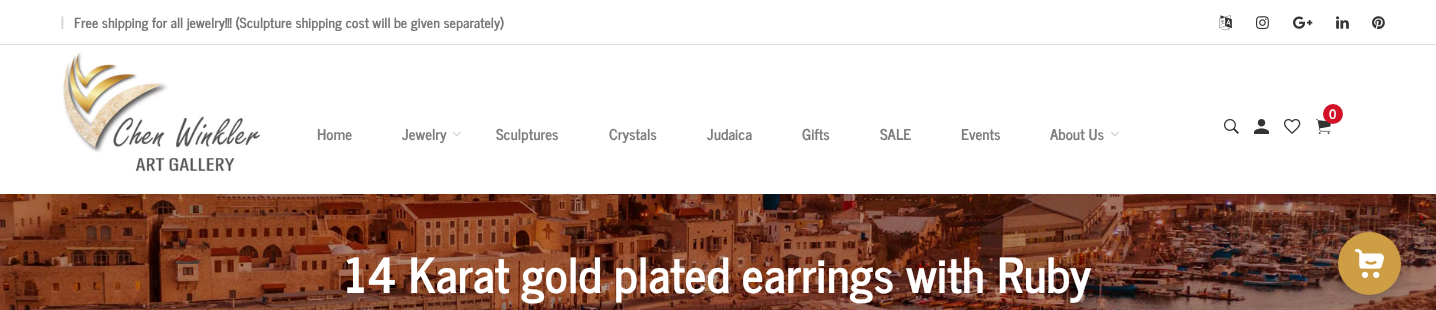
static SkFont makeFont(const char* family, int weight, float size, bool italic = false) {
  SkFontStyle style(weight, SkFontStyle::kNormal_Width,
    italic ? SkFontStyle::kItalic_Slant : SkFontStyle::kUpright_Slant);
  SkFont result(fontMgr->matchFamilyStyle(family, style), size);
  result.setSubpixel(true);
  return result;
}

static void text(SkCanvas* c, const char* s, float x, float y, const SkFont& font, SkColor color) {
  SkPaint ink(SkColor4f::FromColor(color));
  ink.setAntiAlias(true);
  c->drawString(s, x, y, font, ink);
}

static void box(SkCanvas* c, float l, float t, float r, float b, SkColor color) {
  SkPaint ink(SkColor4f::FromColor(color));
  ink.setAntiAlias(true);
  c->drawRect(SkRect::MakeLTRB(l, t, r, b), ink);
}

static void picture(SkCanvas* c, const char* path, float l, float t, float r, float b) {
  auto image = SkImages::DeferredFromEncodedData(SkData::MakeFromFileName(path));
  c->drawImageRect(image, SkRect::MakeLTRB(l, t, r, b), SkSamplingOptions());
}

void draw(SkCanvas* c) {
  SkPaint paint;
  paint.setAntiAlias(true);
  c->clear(0xffffffff);
  box(c, 0, 44, 1436, 45, 0xffdedede);
  SkFont face1 = makeFont("News Cycle", 700, 15);
  text(c, "|", 61, 28, face1, 0xffd8d8d8);
  SkFont face2 = makeFont("News Cycle", 700, 14);
  text(c, "Free shipping for all jewelry!!! (Sculpture shipping cost will be given separately)", 74, 28, face2, 0xff777777);
  picture(c, "img_01.png", 1219, 15, 1232, 31);
  picture(c, "img_02.png", 1256, 16, 1269, 30);
  picture(c, "img_03.png", 1293, 16, 1313, 29);
  picture(c, "img_04.png", 1336, 16, 1349, 29);
  picture(c, "img_05.png", 1372, 16, 1385, 30);
  picture(c, "img_06.png", 62, 52, 261, 171);
  picture(c, "img_07.png", 1316, 119, 1331, 134);
  paint.setColor(0xffd3122a);
  c->drawCircle(1333, 114, 10, paint);
  SkFont face3 = makeFont("News Cycle", 700, 13);
  text(c, "0", 1329, 119, face3, 0xffffffff);
  picture(c, "img_08.png", 1224, 119, 1239, 134);
  picture(c, "img_09.png", 1254, 119, 1269, 134);
  picture(c, "img_10.png", 1284, 119, 1301, 134);
  text(c, "Home", 317, 140, face1, 0xff7e7e7e);
  text(c, "Jewelry", 402, 140, face1, 0xff7e7e7e);
  picture(c, "img_11.png", 452, 131, 461, 137);
  text(c, "Sculptures", 496, 140, face1, 0xff7e7e7e);
  text(c, "Crystals", 609, 140, face1, 0xff7e7e7e);
  text(c, "Judaica", 707, 140, face1, 0xff7e7e7e);
  text(c, "Gifts", 802, 140, face1, 0xff7e7e7e);
  text(c, "SALE", 880, 140, face1, 0xff7e7e7e);
  text(c, "Events", 961, 140, face1, 0xff7e7e7e);
  text(c, "About Us", 1050, 140, face1, 0xff7e7e7e);
  picture(c, "img_11.png", 1110, 131, 1119, 137);
  picture(c, "img_12.png", 0, 194, 1436, 310);
  SkFont face4 = makeFont("News Cycle", 700, 48);
  text(c, "14 Karat gold plated earrings with Ruby", 345, 293, face4, 0xffffffff);
  paint.setColor(0x1a000000);
  paint.setMaskFilter(SkMaskFilter::MakeBlur(kNormal_SkBlurStyle, 3));
  c->drawRoundRect(SkRect::MakeLTRB(1342, 240, 1397, 295), 27.5f, 27.5f, paint);
  paint.setMaskFilter(nullptr);
  paint.setMaskFilter(SkMaskFilter::MakeBlur(kNormal_SkBlurStyle, 7.5f));
  c->drawRoundRect(SkRect::MakeLTRB(1341, 245, 1398, 302), 28.5f, 28.5f, paint);
  paint.setMaskFilter(nullptr);
  paint.setColor(0xffcd9e44);
  c->drawCircle(1369.5f, 263.5f, 31.5f, paint);
  picture(c, "img_13.png", 1355, 249, 1384, 278);
}
